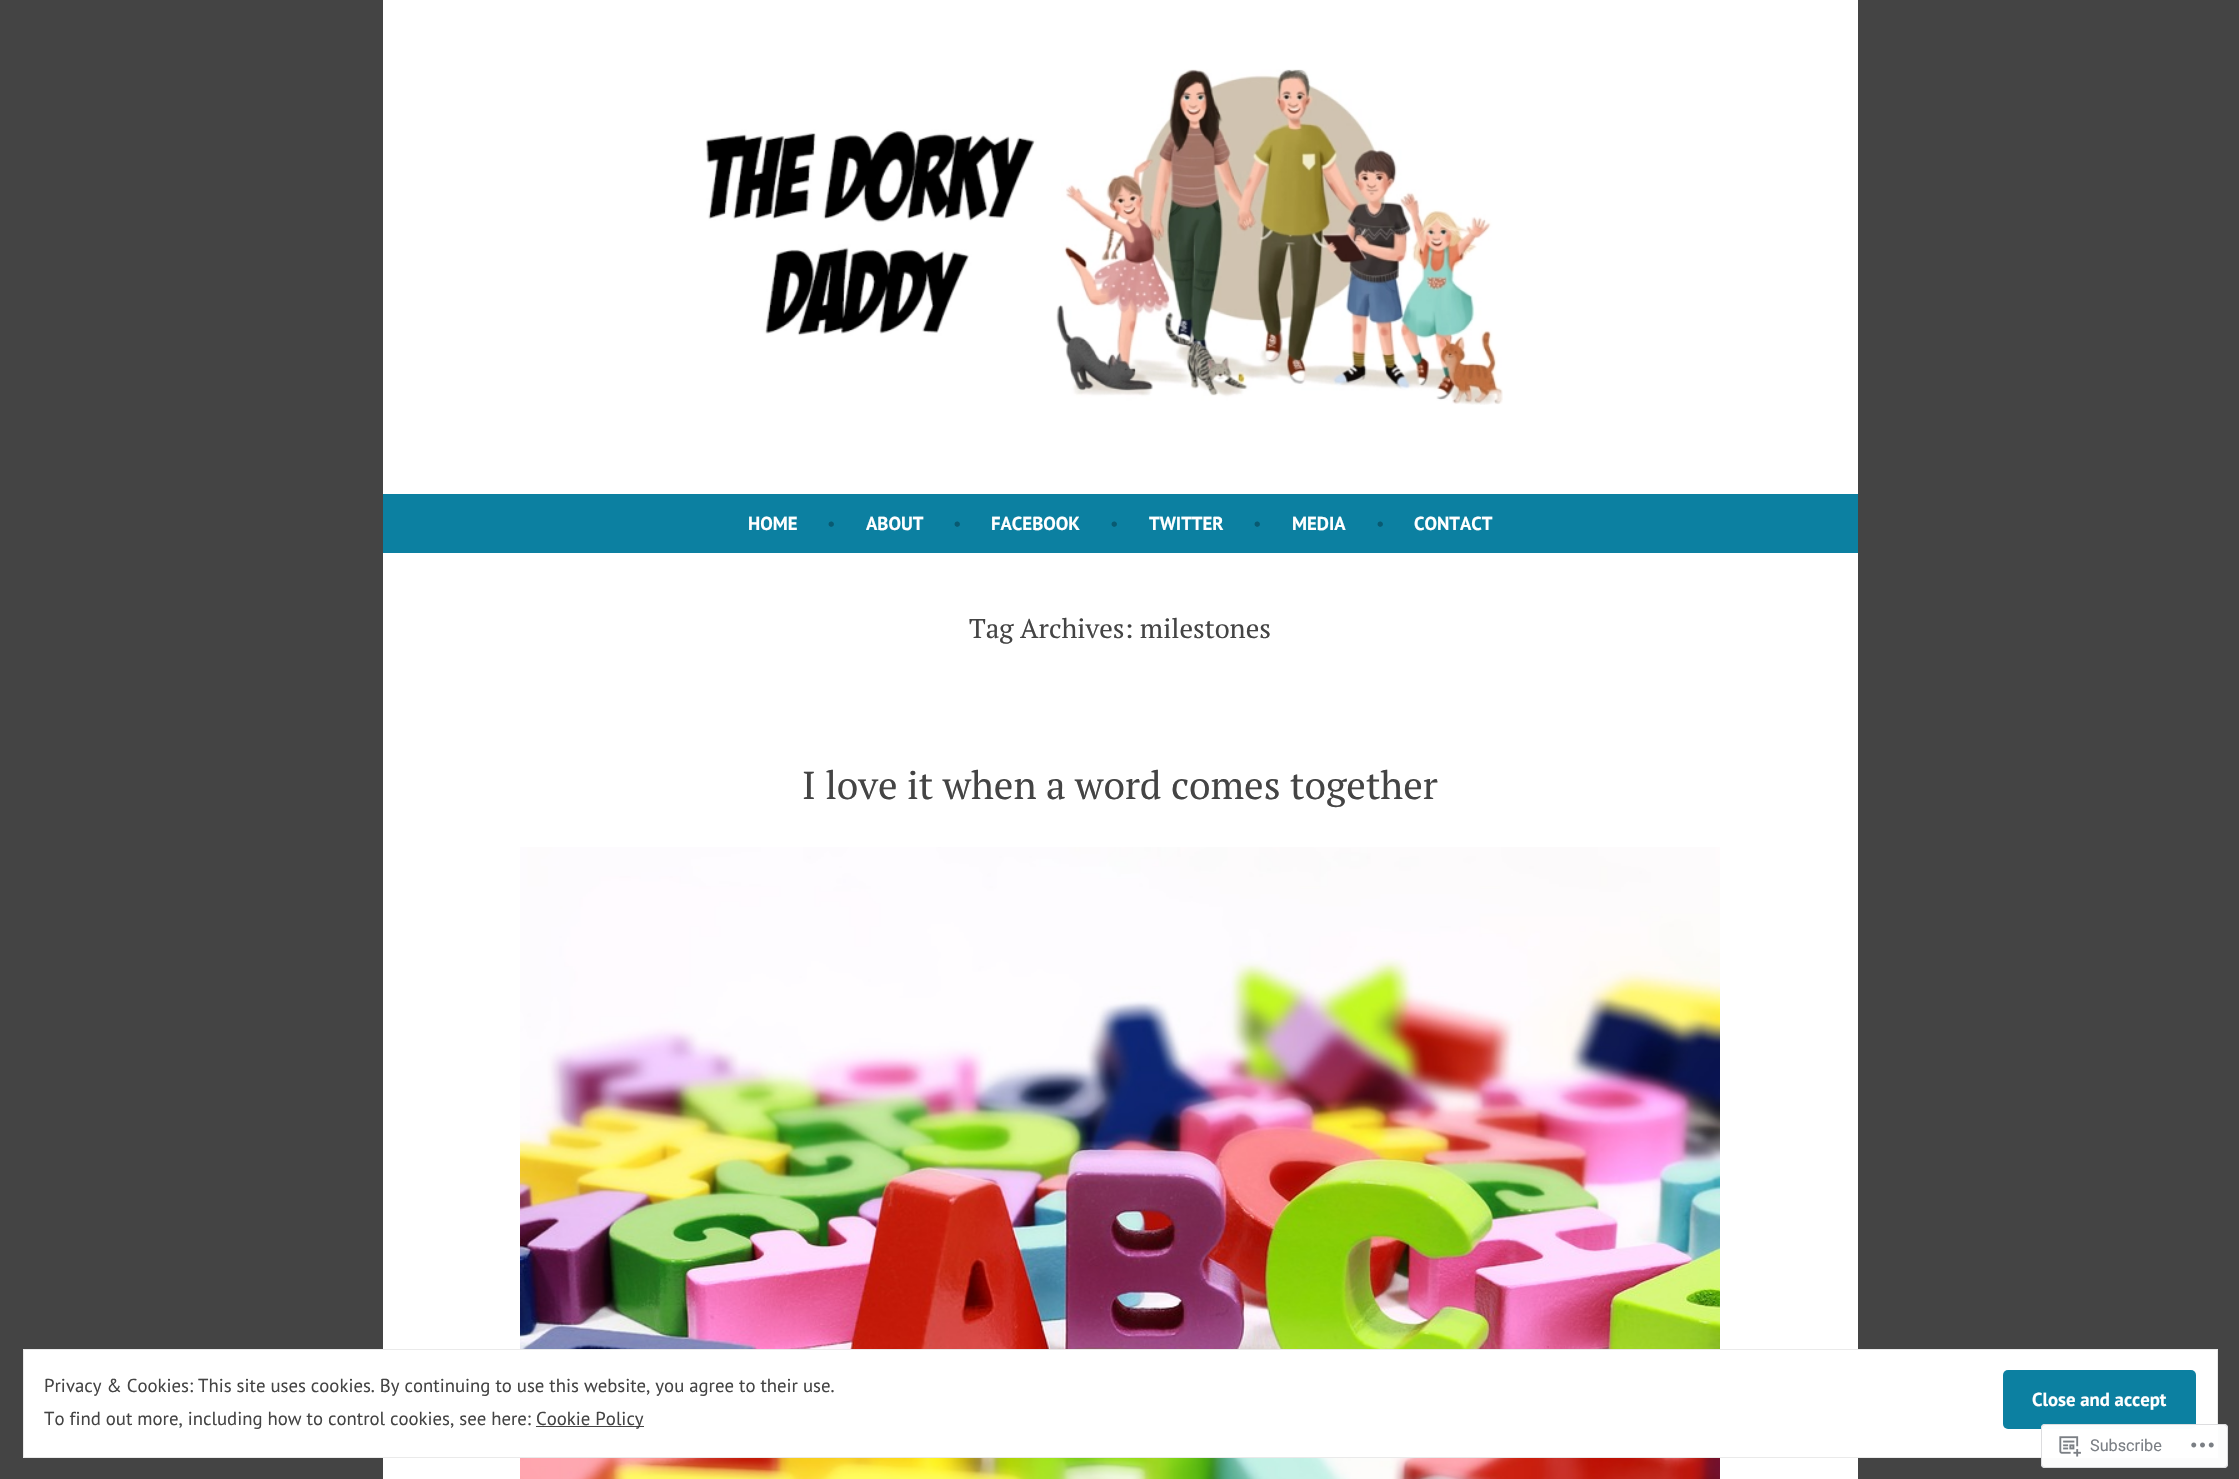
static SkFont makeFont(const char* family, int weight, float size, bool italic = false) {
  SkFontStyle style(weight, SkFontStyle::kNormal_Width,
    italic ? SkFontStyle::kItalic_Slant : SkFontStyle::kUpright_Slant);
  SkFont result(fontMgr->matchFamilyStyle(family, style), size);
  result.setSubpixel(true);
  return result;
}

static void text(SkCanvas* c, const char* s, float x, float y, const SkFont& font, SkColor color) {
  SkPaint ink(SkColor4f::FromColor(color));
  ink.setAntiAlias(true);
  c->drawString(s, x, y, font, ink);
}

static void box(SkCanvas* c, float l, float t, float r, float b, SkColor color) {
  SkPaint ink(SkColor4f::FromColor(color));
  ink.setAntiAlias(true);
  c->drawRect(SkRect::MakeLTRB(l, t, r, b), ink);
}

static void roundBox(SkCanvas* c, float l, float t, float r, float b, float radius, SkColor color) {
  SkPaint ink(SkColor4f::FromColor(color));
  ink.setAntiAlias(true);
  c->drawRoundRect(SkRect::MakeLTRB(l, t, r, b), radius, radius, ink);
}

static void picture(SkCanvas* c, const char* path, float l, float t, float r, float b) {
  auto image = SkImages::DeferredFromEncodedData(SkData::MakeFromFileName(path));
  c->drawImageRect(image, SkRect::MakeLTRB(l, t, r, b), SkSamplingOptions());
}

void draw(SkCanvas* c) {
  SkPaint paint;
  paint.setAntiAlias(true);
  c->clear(0xff444444);
  box(c, 383, 0, 1858, 1479, 0xffffffff);
  picture(c, "img_01.png", 706, 69, 1503, 405);
  box(c, 383, 494, 1858, 553, 0xff0c80a1);
  SkFont face1 = makeFont("PT Sans", 700, 18.75f);
  text(c, "HOME", 748, 530, face1, 0xffffffff);
  SkFont face2 = makeFont("PT Sans", 400, 18.75f);
  text(c, "•", 827, 530, face2, 0xff085a72);
  text(c, "ABOUT", 866, 530, face1, 0xffffffff);
  text(c, "•", 953, 530, face2, 0xff085a72);
  text(c, "FACEBOOK", 991, 530, face1, 0xffffffff);
  text(c, "•", 1110, 530, face2, 0xff085a72);
  text(c, "TWITTER", 1149, 530, face1, 0xffffffff);
  text(c, "•", 1253, 530, face2, 0xff085a72);
  text(c, "MEDIA", 1292, 530, face1, 0xffffffff);
  text(c, "•", 1376, 530, face2, 0xff085a72);
  text(c, "CONTACT", 1414, 530, face1, 0xffffffff);
  SkFont face3 = makeFont("PT Serif", 400, 27);
  text(c, "Tag Archives: milestones", 969, 638, face3, 0xff444444);
  SkFont face4 = makeFont("PT Serif", 400, 38.9f);
  text(c, "I love it when a word comes together", 802, 799, face4, 0xff444444);
  picture(c, "img_02.png", 520, 847, 1720, 1479);
  paint.setColor(0xffffffff);
  c->drawRect(SkRect::MakeLTRB(23.5f, 1349.5f, 2217.5f, 1457.5f), paint);
  paint.setStyle(SkPaint::kStroke_Style);
  paint.setStrokeWidth(1);
  paint.setColor(0xffeaeaea);
  c->drawRect(SkRect::MakeLTRB(23.5f, 1349.5f, 2217.5f, 1457.5f), paint);
  text(c, "Privacy & Cookies: This site uses cookies. By continuing to use this website, you agree to their use.", 44, 1392, face2, 0xff444444);
  roundBox(c, 2003, 1370, 2196, 1429, 5, 0xff0c80a1);
  text(c, "Close and accept", 2032, 1406, face1, 0xffffffff);
  text(c, "To find out more, including how to control cookies, see here:", 44, 1425, face2, 0xff444444);
  box(c, 536, 1426, 644, 1427, 0xff444444);
  text(c, "Cookie Policy", 536, 1425, face2, 0xff444444);
  roundBox(c, 2041, 1424, 2228, 1468, 4, 0xfaffffff);
  paint.setColor(0xfadcdcde);
  c->drawRoundRect(SkRect::MakeLTRB(2041.5f, 1424.5f, 2227.5f, 1467.5f), 3.5f, 3.5f, paint);
  picture(c, "img_03.png", 2059, 1436, 2081, 1457);
  SkFont face5 = makeFont("Roboto", 400, 16.25f);
  text(c, "Subscribe", 2090, 1451, face5, 0xff7b7f85);
  picture(c, "img_04.png", 2191, 1442, 2214, 1448);
}
